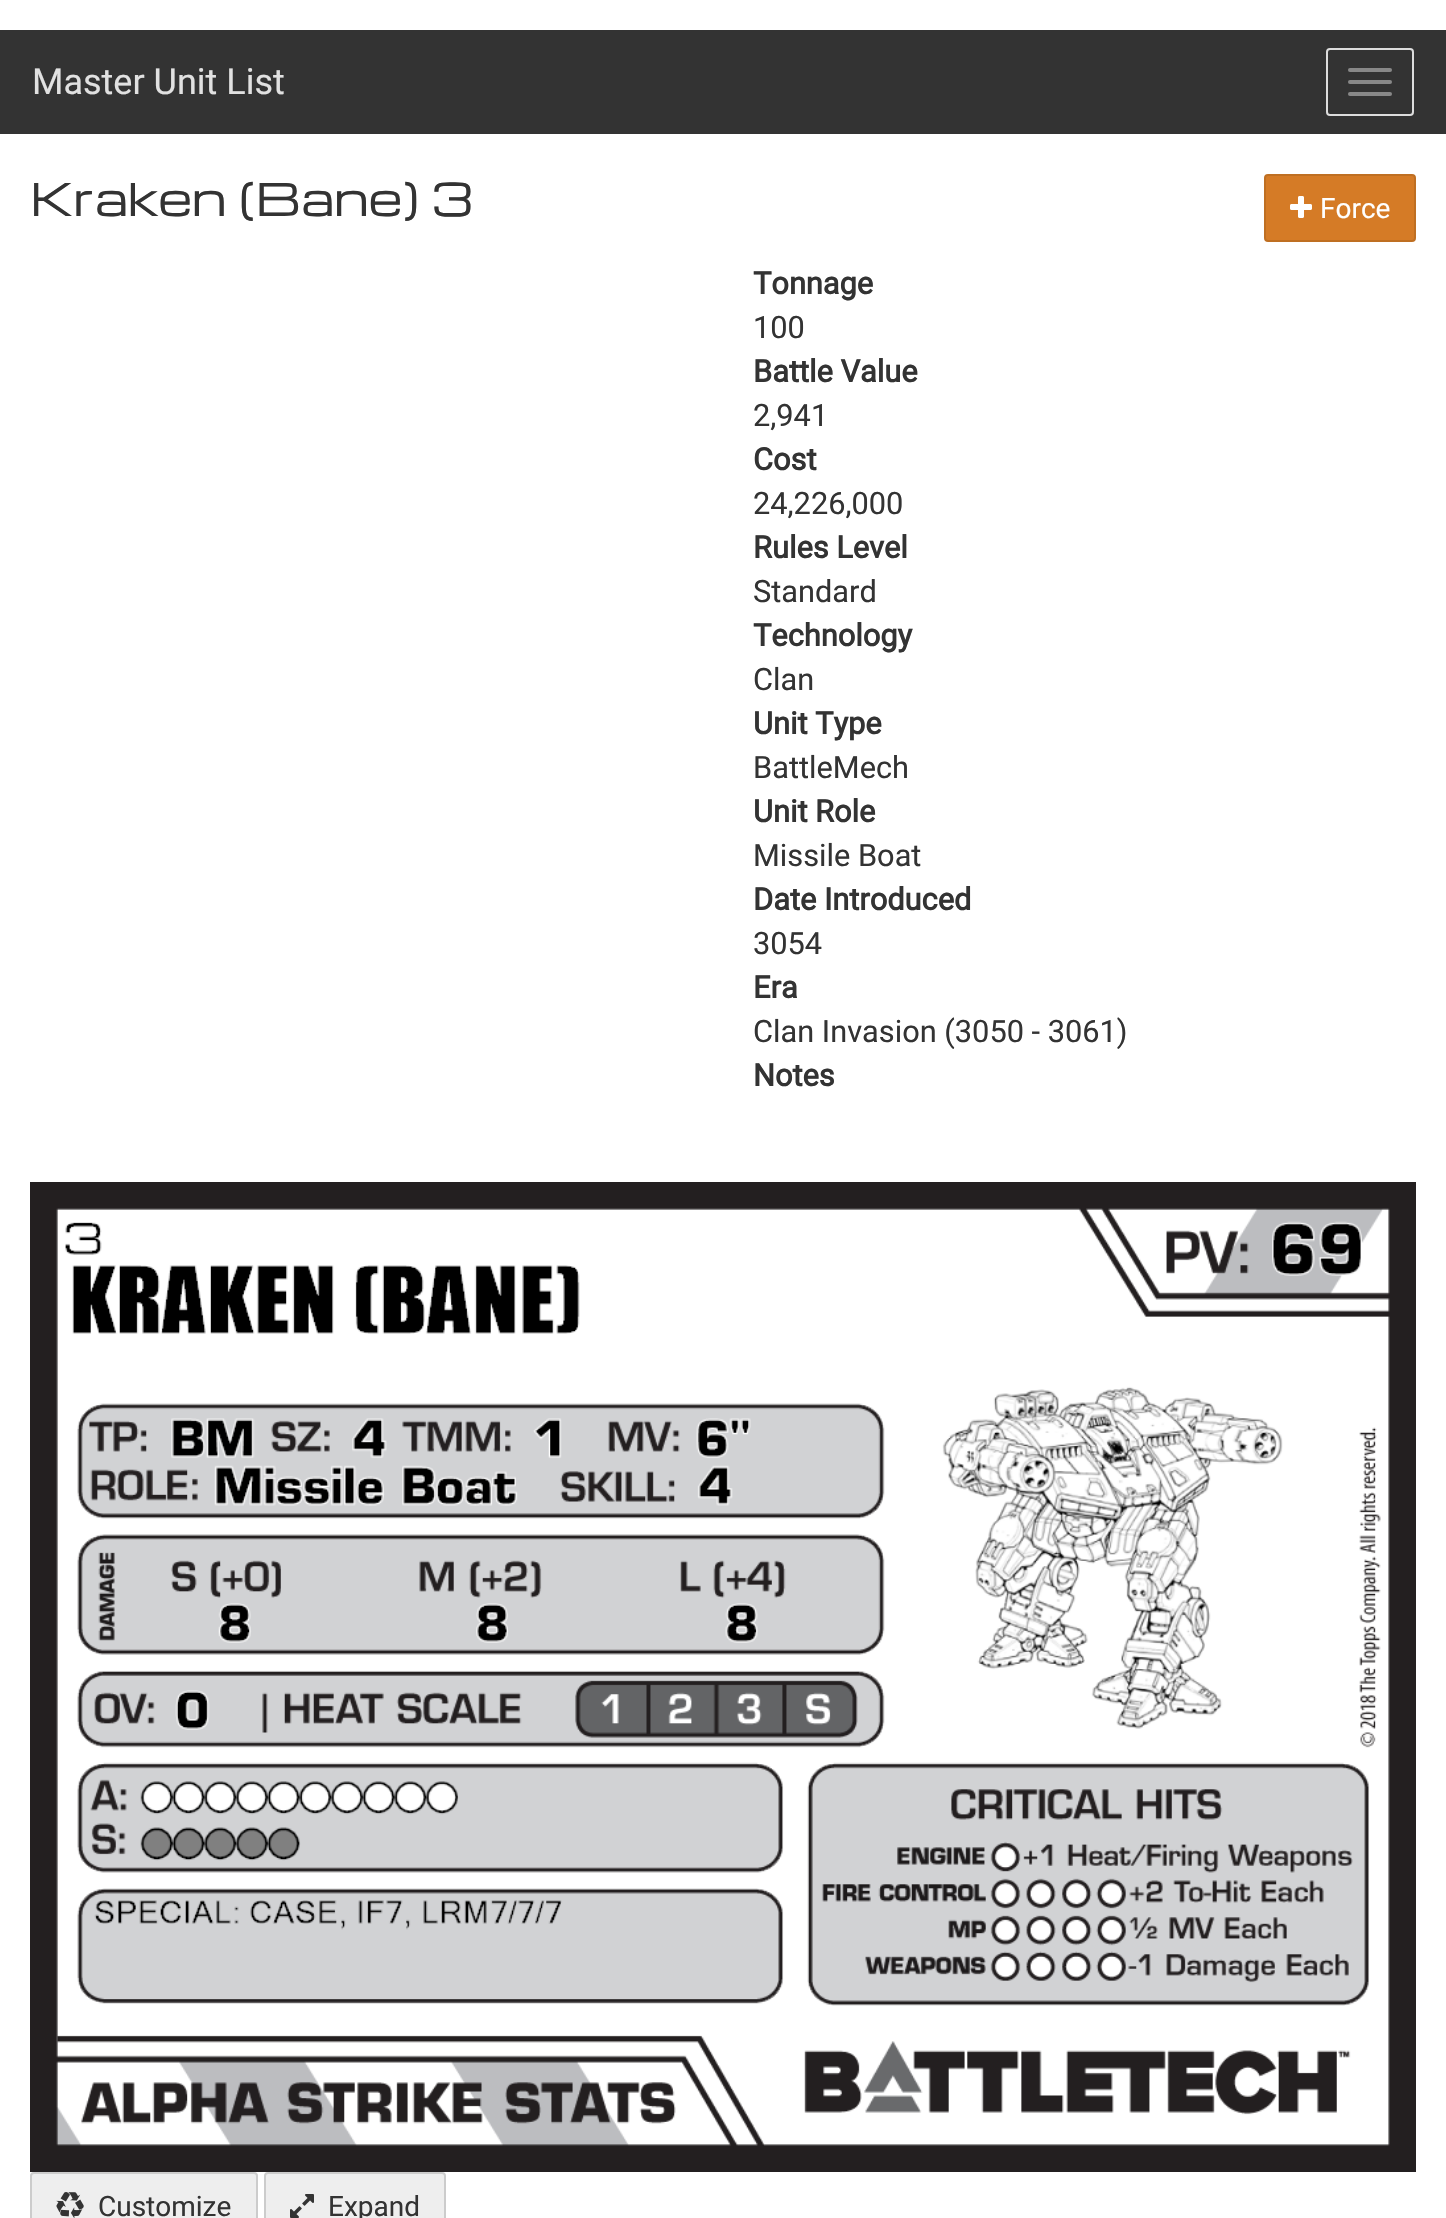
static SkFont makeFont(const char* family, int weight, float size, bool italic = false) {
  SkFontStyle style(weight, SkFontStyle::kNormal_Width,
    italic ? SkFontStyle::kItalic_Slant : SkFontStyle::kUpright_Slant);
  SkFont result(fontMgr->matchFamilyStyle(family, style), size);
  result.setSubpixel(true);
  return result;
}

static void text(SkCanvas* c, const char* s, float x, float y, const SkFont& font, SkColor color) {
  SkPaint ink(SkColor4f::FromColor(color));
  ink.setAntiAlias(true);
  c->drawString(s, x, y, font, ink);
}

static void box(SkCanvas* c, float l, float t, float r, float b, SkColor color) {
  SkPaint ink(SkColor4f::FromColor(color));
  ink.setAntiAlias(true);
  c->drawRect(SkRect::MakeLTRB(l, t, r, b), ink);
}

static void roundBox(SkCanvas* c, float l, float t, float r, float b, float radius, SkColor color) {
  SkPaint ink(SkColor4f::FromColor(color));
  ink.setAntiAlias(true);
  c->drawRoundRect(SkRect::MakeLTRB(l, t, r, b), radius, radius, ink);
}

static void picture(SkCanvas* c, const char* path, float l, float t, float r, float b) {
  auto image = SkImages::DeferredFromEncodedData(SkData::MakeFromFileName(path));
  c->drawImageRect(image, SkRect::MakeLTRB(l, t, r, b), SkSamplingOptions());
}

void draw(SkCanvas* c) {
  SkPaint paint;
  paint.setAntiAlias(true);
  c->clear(0xffffffff);
  box(c, 0, 30, 1446, 134, 0xff333333);
  SkFont face1 = makeFont("Roboto", 400, 36);
  text(c, "Master Unit List", 32, 94, face1, 0xffe1e1e1);
  paint.setStyle(SkPaint::kStroke_Style);
  paint.setStrokeWidth(2);
  paint.setColor(0xffdddddd);
  c->drawRoundRect(SkRect::MakeLTRB(1327, 49, 1413, 115), 3, 3, paint);
  roundBox(c, 1348, 68, 1392, 72, 2, 0xff888888);
  roundBox(c, 1348, 80, 1392, 84, 2, 0xff888888);
  roundBox(c, 1348, 92, 1392, 96, 2, 0xff888888);
  SkFont face2 = makeFont("Michroma", 400, 44);
  text(c, "Kraken (Bane) 3", 30, 216, face2, 0xff333333);
  paint.setStyle(SkPaint::kFill_Style);
  paint.setColor(0xffd57b26);
  c->drawRoundRect(SkRect::MakeLTRB(1265, 175, 1415, 241), 3, 3, paint);
  paint.setStyle(SkPaint::kStroke_Style);
  paint.setColor(0xffbf6f22);
  c->drawRoundRect(SkRect::MakeLTRB(1265, 175, 1415, 241), 3, 3, paint);
  picture(c, "img_01.png", 1290, 196, 1312, 218);
  SkFont face3 = makeFont("Roboto", 400, 28);
  text(c, "Force", 1320, 218, face3, 0xffffffff);
  SkFont face4 = makeFont("Roboto", 700, 30.75f);
  text(c, "Tonnage", 753, 294, face4, 0xff333333);
  SkFont face5 = makeFont("Roboto", 400, 30.75f);
  text(c, "100", 753, 338, face5, 0xff333333);
  text(c, "Battle Value", 753, 382, face4, 0xff333333);
  text(c, "2,941", 753, 426, face5, 0xff333333);
  text(c, "Cost", 753, 470, face4, 0xff333333);
  text(c, "24,226,000", 753, 514, face5, 0xff333333);
  text(c, "Rules Level", 753, 558, face4, 0xff333333);
  text(c, "Standard", 753, 602, face5, 0xff333333);
  text(c, "Technology", 753, 646, face4, 0xff333333);
  text(c, "Clan", 753, 690, face5, 0xff333333);
  text(c, "Unit Type", 753, 734, face4, 0xff333333);
  text(c, "BattleMech", 753, 778, face5, 0xff333333);
  text(c, "Unit Role", 753, 822, face4, 0xff333333);
  text(c, "Missile Boat", 753, 866, face5, 0xff333333);
  text(c, "Date Introduced", 753, 910, face4, 0xff333333);
  text(c, "3054", 753, 954, face5, 0xff333333);
  text(c, "Era", 753, 998, face4, 0xff333333);
  text(c, "Clan Invasion (3050 - 3061)", 753, 1042, face5, 0xff333333);
  text(c, "Notes", 753, 1086, face4, 0xff333333);
  picture(c, "img_02.png", 30, 1182, 1416, 2172);
  paint.setStyle(SkPaint::kFill_Style);
  paint.setColor(0xffeeeeee);
  c->drawRoundRect(SkRect::MakeLTRB(31, 2173, 257, 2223), 3, 3, paint);
  paint.setStyle(SkPaint::kStroke_Style);
  paint.setColor(0xffcccccc);
  c->drawRoundRect(SkRect::MakeLTRB(31, 2173, 257, 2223), 3, 3, paint);
  picture(c, "img_03.png", 56, 2192, 84, 2218);
  text(c, "Customize", 98, 2216, face3, 0xff333333);
  paint.setStyle(SkPaint::kFill_Style);
  paint.setColor(0xffeeeeee);
  c->drawRoundRect(SkRect::MakeLTRB(265, 2173, 445, 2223), 3, 3, paint);
  paint.setStyle(SkPaint::kStroke_Style);
  paint.setColor(0xffcccccc);
  c->drawRoundRect(SkRect::MakeLTRB(265, 2173, 445, 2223), 3, 3, paint);
  picture(c, "img_04.png", 290, 2194, 314, 2218);
  text(c, "Expand", 328, 2216, face3, 0xff333333);
}
